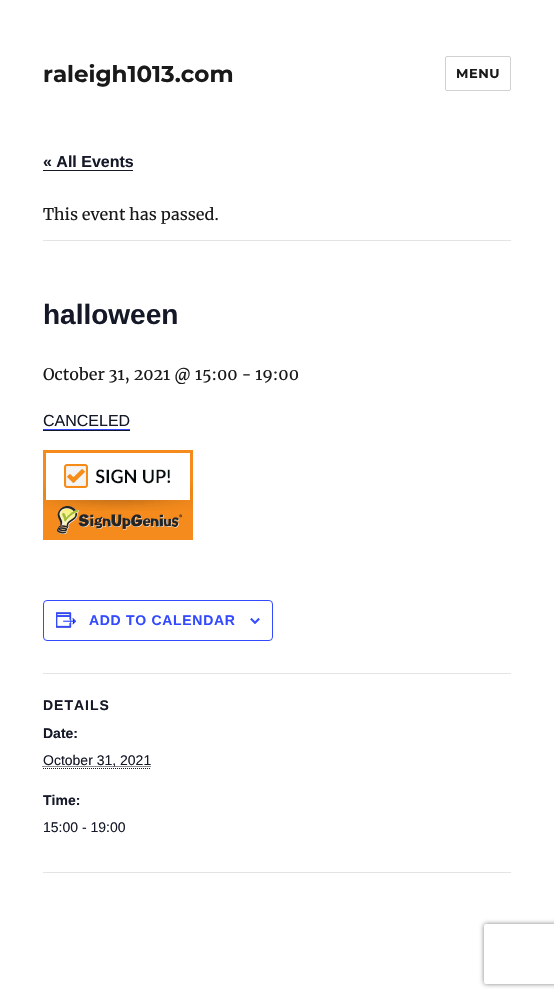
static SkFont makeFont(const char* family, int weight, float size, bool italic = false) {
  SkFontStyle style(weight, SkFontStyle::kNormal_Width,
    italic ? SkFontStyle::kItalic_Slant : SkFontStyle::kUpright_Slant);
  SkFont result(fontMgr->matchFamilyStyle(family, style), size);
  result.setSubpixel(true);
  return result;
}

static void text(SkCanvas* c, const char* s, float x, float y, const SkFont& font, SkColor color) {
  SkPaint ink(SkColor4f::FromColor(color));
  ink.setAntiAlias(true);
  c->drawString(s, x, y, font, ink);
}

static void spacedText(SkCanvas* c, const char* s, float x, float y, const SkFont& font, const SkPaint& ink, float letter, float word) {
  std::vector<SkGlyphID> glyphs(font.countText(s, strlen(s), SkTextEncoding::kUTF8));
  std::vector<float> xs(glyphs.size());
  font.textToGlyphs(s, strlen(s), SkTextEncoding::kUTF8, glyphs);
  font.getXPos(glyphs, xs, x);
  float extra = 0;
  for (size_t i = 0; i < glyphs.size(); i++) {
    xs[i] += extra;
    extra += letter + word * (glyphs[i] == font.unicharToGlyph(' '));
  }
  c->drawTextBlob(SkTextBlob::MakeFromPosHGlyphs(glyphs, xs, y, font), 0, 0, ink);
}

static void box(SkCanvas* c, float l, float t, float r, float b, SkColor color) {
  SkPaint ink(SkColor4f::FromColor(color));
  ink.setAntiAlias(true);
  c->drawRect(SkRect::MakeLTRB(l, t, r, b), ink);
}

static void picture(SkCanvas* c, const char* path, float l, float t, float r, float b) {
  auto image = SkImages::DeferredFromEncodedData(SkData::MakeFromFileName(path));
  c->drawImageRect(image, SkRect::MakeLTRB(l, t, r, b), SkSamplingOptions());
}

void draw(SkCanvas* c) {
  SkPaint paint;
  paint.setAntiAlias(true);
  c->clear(0xffffffff);
  SkFont face1 = makeFont("Montserrat", 100, 23);
  text(c, "raleigh1013.com", 43, 82, face1, 0xff1a1a1a);
  paint.setStyle(SkPaint::kStroke_Style);
  paint.setStrokeWidth(1);
  paint.setColor(0xffd1d1d1);
  c->drawRoundRect(SkRect::MakeLTRB(445.5f, 56.5f, 510.5f, 90.5f), 1.5f, 1.5f, paint);
  SkFont face2 = makeFont("Montserrat", 100, 13);
  paint.setStyle(SkPaint::kFill_Style);
  paint.setColor(0xff1a1a1a);
  spacedText(c, "MENU", 456, 78, face2, paint, 0.5f, 0);
  SkFont face3 = makeFont("Liberation Sans", 700, 16);
  text(c, "« All Events", 43, 167, face3, 0xff141827);
  box(c, 43, 170, 133, 171, 0xff141827);
  box(c, 43, 240, 511, 241, 0xffe4e4e4);
  SkFont face4 = makeFont("Merriweather", 400, 16);
  text(c, "This event has passed.", 43, 220, face4, 0xff1a1a1a);
  SkFont face5 = makeFont("Liberation Sans", 700, 28);
  text(c, "halloween", 43, 324, face5, 0xff141827);
  text(c, "October 31, 2021 @ 15:00 - 19:00", 43, 380, face4, 0xff1a1a1a);
  SkFont face6 = makeFont("Liberation Sans", 400, 16);
  text(c, "CANCELED", 43, 426, face6, 0xff141827);
  box(c, 43, 430, 130, 431, 0xff141827);
  box(c, 43, 429, 130, 430, 0xff334aff);
  picture(c, "img_01.png", 43, 450, 193, 540);
  paint.setStyle(SkPaint::kStroke_Style);
  paint.setColor(0xff334aff);
  c->drawRoundRect(SkRect::MakeLTRB(43.5f, 600.5f, 272.5f, 640.5f), 3.5f, 3.5f, paint);
  picture(c, "img_02.png", 56, 612, 77, 628);
  SkFont face7 = makeFont("Liberation Sans", 700, 14);
  paint.setStyle(SkPaint::kFill_Style);
  spacedText(c, "ADD TO CALENDAR", 89, 625, face7, paint, 0.7f, 0);
  picture(c, "img_03.png", 250, 618, 260, 624);
  box(c, 43, 673, 511, 674, 0xffe4e4e4);
  paint.setColor(0xff141827);
  spacedText(c, "DETAILS", 43, 710, face7, paint, 1, 0);
  text(c, "Date:", 43, 738, face7, 0xff141827);
  paint.setStyle(SkPaint::kStroke_Style);
  paint.setPathEffect(SkDashPathEffect::Make({{1, 1}}, 0));
  c->drawPath(SkPathBuilder().moveTo(42.5f, 766.5f).lineTo(151, 766.5f).detach(), paint);
  paint.setPathEffect(nullptr);
  SkFont face8 = makeFont("Liberation Sans", 400, 14);
  text(c, "October 31, 2021", 43, 765, face8, 0xff141827);
  paint.setPathEffect(SkDashPathEffect::Make({{1, 1}}, 0));
  c->drawPath(SkPathBuilder().moveTo(43, 768.5f).lineTo(151, 768.5f).detach(), paint);
  paint.setPathEffect(nullptr);
  text(c, "Time:", 43, 805, face7, 0xff141827);
  text(c, "15:00 - 19:00", 43, 832, face8, 0xff141827);
  box(c, 43, 872, 511, 873, 0xffe4e4e4);
  c->save();
  c->clipPath(SkPathBuilder(SkPathFillType::kEvenOdd).moveTo(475, 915).lineTo(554, 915).lineTo(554, 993).lineTo(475, 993).close().moveTo(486, 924).lineTo(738, 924).cubicTo(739, 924, 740, 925, 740, 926).lineTo(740, 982).cubicTo(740, 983, 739, 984, 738, 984).lineTo(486, 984).cubicTo(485, 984, 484, 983, 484, 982).lineTo(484, 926).cubicTo(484, 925, 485, 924, 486, 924).close().detach(), true);
  paint.setStyle(SkPaint::kFill_Style);
  paint.setColor(0xff808080);
  paint.setMaskFilter(SkMaskFilter::MakeBlur(kNormal_SkBlurStyle, 2.5f));
  c->drawRoundRect(SkRect::MakeLTRB(484, 924, 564, 984), 2, 2, paint);
  paint.setMaskFilter(nullptr);
  c->restore();
}
